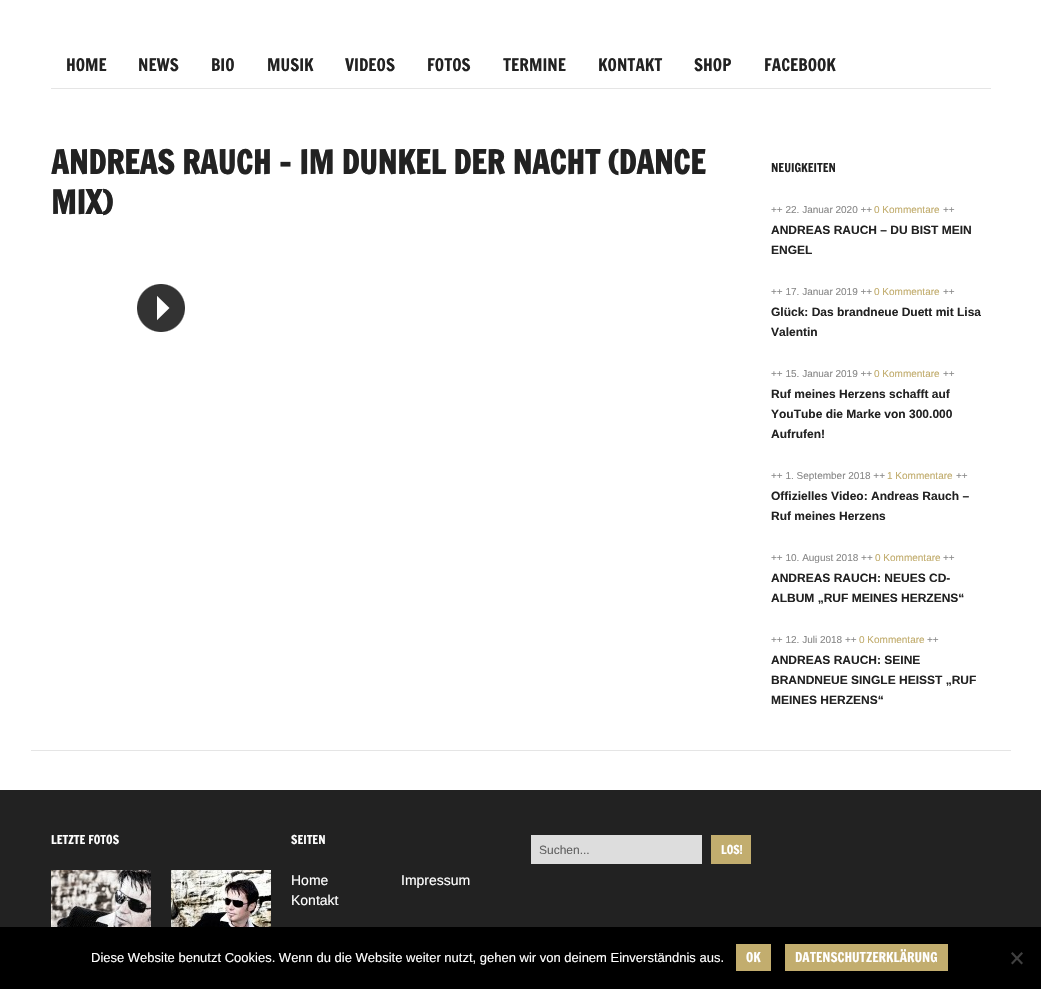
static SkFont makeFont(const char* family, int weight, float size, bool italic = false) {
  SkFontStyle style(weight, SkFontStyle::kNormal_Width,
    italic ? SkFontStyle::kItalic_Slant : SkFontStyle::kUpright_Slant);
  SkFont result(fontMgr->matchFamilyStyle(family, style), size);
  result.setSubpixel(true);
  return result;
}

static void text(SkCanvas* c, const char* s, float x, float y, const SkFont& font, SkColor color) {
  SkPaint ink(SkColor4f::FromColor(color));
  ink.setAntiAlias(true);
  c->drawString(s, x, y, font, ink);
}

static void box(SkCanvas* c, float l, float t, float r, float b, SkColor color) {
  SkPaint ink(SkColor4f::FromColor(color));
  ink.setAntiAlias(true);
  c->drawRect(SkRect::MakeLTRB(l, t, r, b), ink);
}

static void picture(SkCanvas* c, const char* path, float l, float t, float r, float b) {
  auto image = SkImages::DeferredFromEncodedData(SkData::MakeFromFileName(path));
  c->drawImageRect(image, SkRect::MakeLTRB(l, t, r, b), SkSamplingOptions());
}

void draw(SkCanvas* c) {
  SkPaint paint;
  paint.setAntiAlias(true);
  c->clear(0xffffffff);
  c->save();
  c->clipRect(SkRect::MakeLTRB(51, 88, 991, 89));
  paint.setColor(0x1a000000);
  paint.setMaskFilter(SkMaskFilter::MakeBlur(kNormal_SkBlurStyle, 0.5f));
  c->drawRect(SkRect::MakeLTRB(51, 42, 991, 89), paint);
  paint.setMaskFilter(nullptr);
  c->restore();
  SkFont face1 = makeFont("Francois One", 400, 17);
  text(c, "HOME", 66, 71, face1, 0xff222222);
  text(c, "NEWS", 138, 71, face1, 0xff222222);
  text(c, "BIO", 211, 71, face1, 0xff222222);
  text(c, "MUSIK", 267, 71, face1, 0xff222222);
  text(c, "VIDEOS", 345, 71, face1, 0xff222222);
  text(c, "FOTOS", 427, 71, face1, 0xff222222);
  text(c, "TERMINE", 503, 71, face1, 0xff222222);
  text(c, "KONTAKT", 598, 71, face1, 0xff222222);
  text(c, "SHOP", 694, 71, face1, 0xff222222);
  text(c, "FACEBOOK", 764, 71, face1, 0xff222222);
  c->save();
  c->clipRect(SkRect::MakeLTRB(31, 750, 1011, 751));
  paint.setMaskFilter(SkMaskFilter::MakeBlur(kNormal_SkBlurStyle, 0.5f));
  c->drawRect(SkRect::MakeLTRB(31, 129, 1011, 751), paint);
  paint.setMaskFilter(nullptr);
  c->restore();
  SkFont face2 = makeFont("Francois One", 700, 32);
  text(c, "ANDREAS RAUCH – IM DUNKEL DER NACHT (DANCE", 51, 174, face2, 0xff222222);
  text(c, "MIX)", 51, 214, face2, 0xff222222);
  picture(c, "img_01.png", 137, 284, 185, 332);
  SkFont face3 = makeFont("Francois One", 400, 12);
  text(c, "NEUIGKEITEN", 771, 172, face3, 0xff222222);
  SkFont face4 = makeFont("Liberation Sans", 400, 10);
  text(c, "++ 22. Januar 2020 ++", 771, 213, face4, 0xff888888);
  text(c, "0 Kommentare", 874, 213, face4, 0xffc2ad6e);
  text(c, "++", 943, 213, face4, 0xff888888);
  SkFont face5 = makeFont("Liberation Sans", 700, 12);
  text(c, "ANDREAS RAUCH – DU BIST MEIN", 771, 234, face5, 0xff222222);
  text(c, "ENGEL", 771, 254, face5, 0xff222222);
  text(c, "++ 17. Januar 2019 ++", 771, 295, face4, 0xff888888);
  text(c, "0 Kommentare", 874, 295, face4, 0xffc2ad6e);
  text(c, "++", 943, 295, face4, 0xff888888);
  text(c, "Glück: Das brandneue Duett mit Lisa", 771, 316, face5, 0xff222222);
  text(c, "Valentin", 771, 336, face5, 0xff222222);
  text(c, "++ 15. Januar 2019 ++", 771, 377, face4, 0xff888888);
  text(c, "0 Kommentare", 874, 377, face4, 0xffc2ad6e);
  text(c, "++", 943, 377, face4, 0xff888888);
  text(c, "Ruf meines Herzens schafft auf", 771, 398, face5, 0xff222222);
  text(c, "YouTube die Marke von 300.000", 771, 418, face5, 0xff222222);
  text(c, "Aufrufen!", 771, 438, face5, 0xff222222);
  text(c, "++ 1. September 2018 ++", 771, 479, face4, 0xff888888);
  text(c, "1 Kommentare", 887, 479, face4, 0xffc2ad6e);
  text(c, "++", 956, 479, face4, 0xff888888);
  text(c, "Offizielles Video: Andreas Rauch –", 771, 500, face5, 0xff222222);
  text(c, "Ruf meines Herzens", 771, 520, face5, 0xff222222);
  text(c, "++ 10. August 2018 ++", 771, 561, face4, 0xff888888);
  text(c, "0 Kommentare", 875, 561, face4, 0xffc2ad6e);
  text(c, "++", 943, 561, face4, 0xff888888);
  text(c, "ANDREAS RAUCH: NEUES CD-", 771, 582, face5, 0xff222222);
  text(c, "ALBUM „RUF MEINES HERZENS“", 771, 602, face5, 0xff222222);
  text(c, "++ 12. Juli 2018 ++", 771, 643, face4, 0xff888888);
  text(c, "0 Kommentare", 859, 643, face4, 0xffc2ad6e);
  text(c, "++", 927, 643, face4, 0xff888888);
  text(c, "ANDREAS RAUCH: SEINE", 771, 664, face5, 0xff222222);
  text(c, "BRANDNEUE SINGLE HEISST „RUF", 771, 684, face5, 0xff222222);
  text(c, "MEINES HERZENS“", 771, 704, face5, 0xff222222);
  box(c, 0, 790, 1041, 927, 0xff222222);
  text(c, "LETZTE FOTOS", 51, 844, face3, 0xffffffff);
  picture(c, "img_02.png", 51, 870, 151, 927);
  picture(c, "img_03.png", 171, 870, 271, 927);
  text(c, "SEITEN", 291, 844, face3, 0xffffffff);
  SkFont face6 = makeFont("Liberation Sans", 400, 14);
  text(c, "Home", 291, 885, face6, 0xffffffff);
  text(c, "Impressum", 401, 885, face6, 0xffffffff);
  text(c, "Kontakt", 291, 905, face6, 0xffffffff);
  box(c, 531, 835, 702, 864, 0xffdddddd);
  SkFont face7 = makeFont("Liberation Sans", 400, 12);
  text(c, "Suchen...", 539, 854, face7, 0xff606060);
  box(c, 711, 835, 751, 864, 0xffc2ad6e);
  text(c, "LOS!", 721, 854, face3, 0xffffffff);
  box(c, 0, 927, 1041, 989, 0xff000000);
  SkFont face8 = makeFont("Liberation Sans", 400, 13);
  text(c, "Diese Website benutzt Cookies. Wenn du die Website weiter nutzt, gehen wir von deinem Einverständnis aus.", 91, 962, face8, 0xffffffff);
  box(c, 736, 944, 771, 971, 0xffc2ad6e);
  SkFont face9 = makeFont("Francois One", 400, 13.25f);
  text(c, "OK", 746, 962, face9, 0xffffffff);
  box(c, 785, 944, 948, 971, 0xffc2ad6e);
  text(c, "DATENSCHUTZERKLÄRUNG", 795, 962, face9, 0xffffffff);
  paint.setColor(0xff404040);
  c->drawPath(SkPathBuilder().moveTo(1021.5f, 952).lineTo(1023, 953.5f).lineTo(1012.5f, 964.5f).lineTo(1011, 963).close().detach(), paint);
  c->drawPath(SkPathBuilder().moveTo(1011, 953.5f).lineTo(1012.5f, 952).lineTo(1023, 963).lineTo(1021.5f, 964.5f).close().detach(), paint);
}
